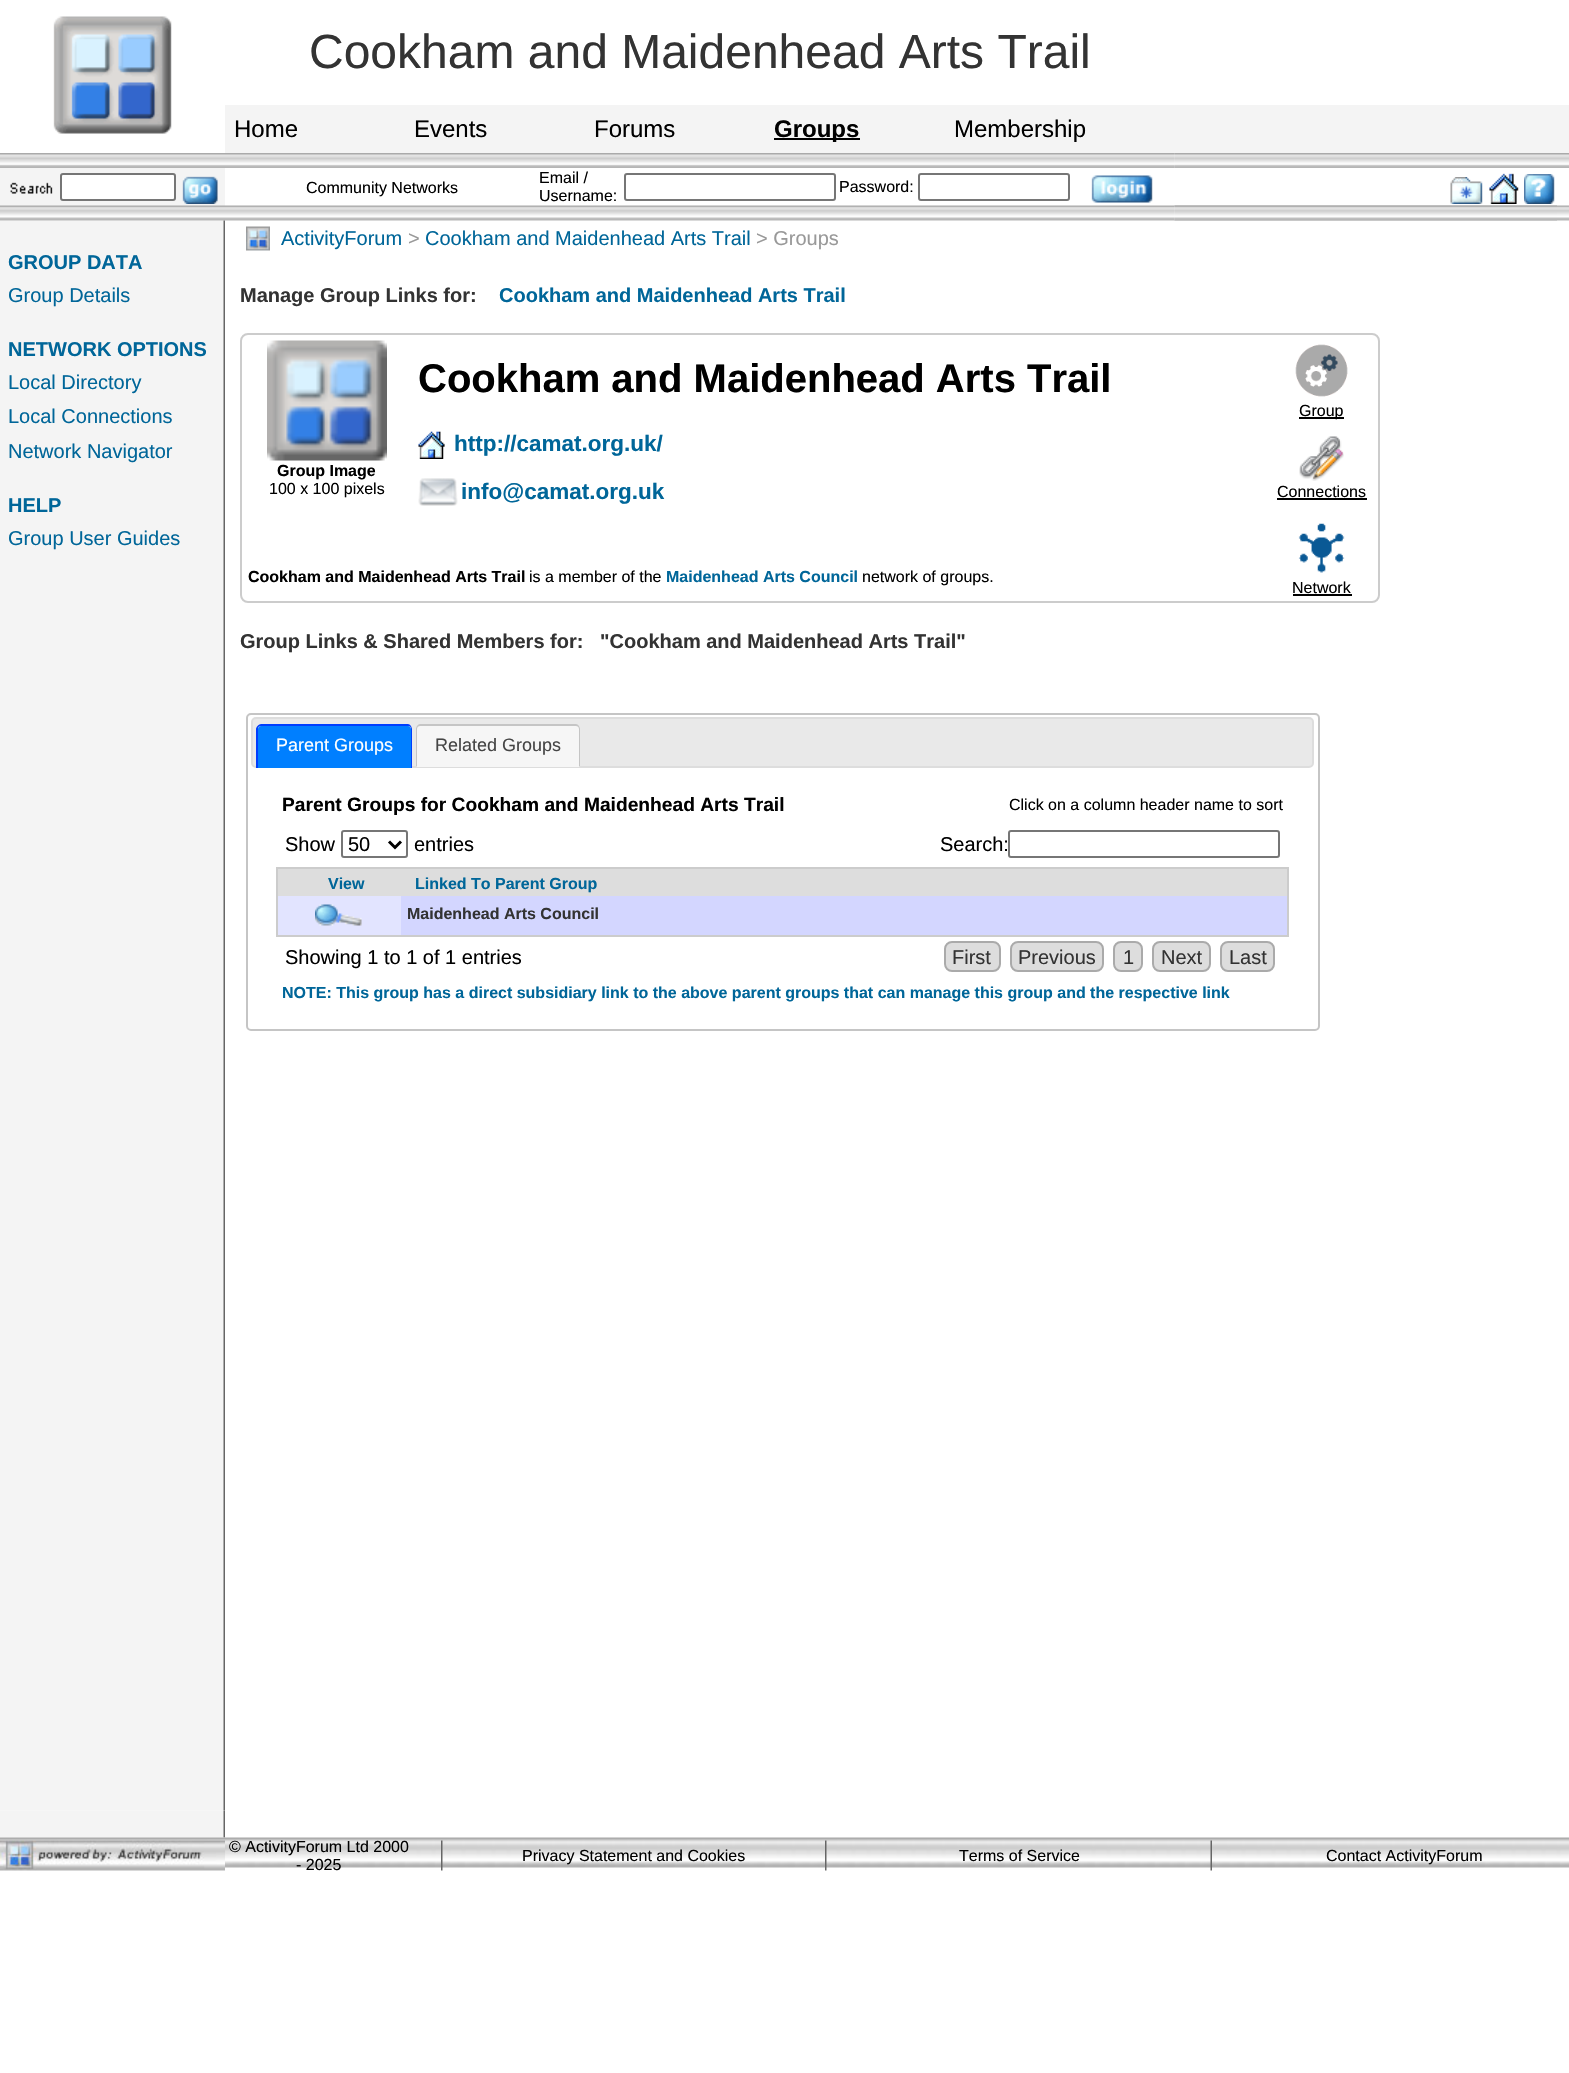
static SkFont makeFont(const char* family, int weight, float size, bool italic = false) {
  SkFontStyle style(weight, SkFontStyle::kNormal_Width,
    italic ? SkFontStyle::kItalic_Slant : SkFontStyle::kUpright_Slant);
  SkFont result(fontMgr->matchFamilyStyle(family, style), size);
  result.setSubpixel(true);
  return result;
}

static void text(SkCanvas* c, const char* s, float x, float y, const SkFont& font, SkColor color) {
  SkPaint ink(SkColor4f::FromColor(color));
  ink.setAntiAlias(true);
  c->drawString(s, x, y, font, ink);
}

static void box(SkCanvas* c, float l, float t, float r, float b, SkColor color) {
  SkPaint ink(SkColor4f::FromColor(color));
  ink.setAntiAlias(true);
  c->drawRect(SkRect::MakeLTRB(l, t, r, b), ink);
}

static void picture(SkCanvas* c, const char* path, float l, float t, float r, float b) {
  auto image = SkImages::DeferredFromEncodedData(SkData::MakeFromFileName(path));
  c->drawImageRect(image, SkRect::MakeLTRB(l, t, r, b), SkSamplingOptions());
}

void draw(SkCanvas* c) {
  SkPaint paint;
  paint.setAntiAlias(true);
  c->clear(0xffffffff);
  picture(c, "img_01.png", 53, 16, 172, 134);
  SkFont face1 = makeFont("Liberation Sans", 400, 48);
  text(c, "Cookham and Maidenhead Arts Trail", 309, 68, face1, 0xff333333);
  box(c, 225, 105, 1569, 153, 0xfff4f4f4);
  SkFont face2 = makeFont("Liberation Sans", 400, 24);
  text(c, "Home", 234, 137, face2, 0xff000000);
  text(c, "Events", 414, 137, face2, 0xff000000);
  text(c, "Forums", 594, 137, face2, 0xff000000);
  box(c, 774, 138, 860, 140, 0xff000000);
  SkFont face3 = makeFont("Liberation Sans", 700, 24);
  text(c, "Groups", 774, 137, face3, 0xff000000);
  text(c, "Membership", 954, 137, face2, 0xff000000);
  picture(c, "img_03.png", 1174, 153, 1569, 168);
  picture(c, "img_02.png", 0, 153, 1175, 168);
  picture(c, "img_04.png", 1174, 153, 1175, 168);
  box(c, 0, 168, 225, 206, 0xfff4f4f4);
  picture(c, "img_05.png", 10, 182, 53, 194);
  paint.setColor(0xffffffff);
  c->drawRoundRect(SkRect::MakeLTRB(61, 174, 175, 200), 2, 2, paint);
  paint.setStyle(SkPaint::kStroke_Style);
  paint.setStrokeWidth(2);
  paint.setColor(0xff767676);
  c->drawRoundRect(SkRect::MakeLTRB(61, 174, 175, 200), 2, 2, paint);
  picture(c, "img_06.png", 182, 176, 218, 204);
  SkFont face4 = makeFont("Liberation Sans", 400, 16);
  text(c, "Community Networks", 306, 193, face4, 0xff000000);
  text(c, "Email /", 539, 183, face4, 0xff000000);
  text(c, "Username:", 539, 201, face4, 0xff000000);
  c->drawRoundRect(SkRect::MakeLTRB(625, 174, 835, 200), 2, 2, paint);
  text(c, "Password:", 839, 192, face4, 0xff000000);
  c->drawRoundRect(SkRect::MakeLTRB(919, 174, 1069, 200), 2, 2, paint);
  picture(c, "img_07.png", 1091, 175, 1153, 203);
  picture(c, "img_08.png", 1450, 177, 1483, 204);
  picture(c, "img_09.png", 1489, 173, 1519, 204);
  picture(c, "img_10.png", 1524, 174, 1555, 204);
  picture(c, "img_12.png", 1174, 205, 1569, 221);
  picture(c, "img_14.png", 0, 220, 225, 1811);
  picture(c, "img_15.png", 223, 220, 225, 221);
  picture(c, "img_11.png", 0, 205, 1175, 221);
  picture(c, "img_13.png", 1174, 205, 1557, 221);
  SkFont face5 = makeFont("Liberation Sans", 700, 20);
  text(c, "GROUP DATA", 8, 269, face5, 0xff006699);
  SkFont face6 = makeFont("Liberation Sans", 400, 20);
  text(c, "Group Details", 8, 302, face6, 0xff006699);
  text(c, "NETWORK OPTIONS", 8, 356, face5, 0xff006699);
  text(c, "Local Directory", 8, 389, face6, 0xff006699);
  text(c, "Local Connections", 8, 423, face6, 0xff006699);
  text(c, "Network Navigator", 8, 458, face6, 0xff006699);
  text(c, "HELP", 8, 512, face5, 0xff006699);
  text(c, "Group User Guides", 8, 545, face6, 0xff006699);
  picture(c, "img_16.png", 246, 226, 270, 251);
  text(c, "ActivityForum", 281, 245, face6, 0xff006699);
  text(c, ">", 408, 245, face6, 0xff999999);
  text(c, "Cookham and Maidenhead Arts Trail", 425, 245, face6, 0xff006699);
  text(c, "> Groups", 756, 245, face6, 0xff999999);
  text(c, "Manage Group Links for:", 240, 302, face5, 0xff333333);
  text(c, "Cookham and Maidenhead Arts Trail", 499, 302, face5, 0xff006699);
  paint.setColor(0xffcccccc);
  c->drawRoundRect(SkRect::MakeLTRB(241, 334, 1379, 602), 7, 7, paint);
  SkFont face7 = makeFont("Liberation Sans", 700, 40);
  text(c, "Cookham and Maidenhead Arts Trail", 418, 392, face7, 0xff000000);
  picture(c, "img_17.png", 267, 340, 387, 461);
  SkFont face8 = makeFont("Liberation Sans", 700, 16);
  text(c, "Group Image", 277, 476, face8, 0xff000000);
  text(c, "100 x 100 pixels", 269, 494, face4, 0xff000000);
  picture(c, "img_18.png", 1295, 344, 1348, 397);
  box(c, 1299, 417, 1344, 419, 0xff000000);
  text(c, "Group", 1299, 416, face4, 0xff000000);
  picture(c, "img_19.png", 1299, 436, 1344, 481);
  text(c, "Connections", 1277, 497, face4, 0xff000000);
  box(c, 1277, 498, 1367, 500, 0xff000000);
  picture(c, "img_20.png", 1298, 523, 1345, 573);
  text(c, "Network", 1292, 593, face4, 0xff000000);
  box(c, 1293, 594, 1352, 596, 0xff000000);
  picture(c, "img_21.png", 418, 431, 445, 459);
  SkFont face9 = makeFont("Liberation Sans", 700, 22.5f);
  text(c, "http://camat.org.uk/", 454, 451, face9, 0xff006699);
  picture(c, "img_22.png", 418, 478, 458, 506);
  text(c, "info@camat.org.uk", 461, 499, face9, 0xff006699);
  text(c, "Cookham and Maidenhead Arts Trail", 248, 582, face8, 0xff000000);
  text(c, "is a member of the", 529, 582, face4, 0xff000000);
  text(c, "Maidenhead Arts Council", 666, 582, face8, 0xff006699);
  text(c, "network of groups.", 862, 582, face4, 0xff000000);
  text(c, "Group Links & Shared Members for:   \"Cookham and Maidenhead Arts Trail\"", 240, 648, face5, 0xff333333);
  paint.setColor(0xffc5c5c5);
  c->drawRoundRect(SkRect::MakeLTRB(247, 714, 1319, 1030), 4, 4, paint);
  paint.setStyle(SkPaint::kFill_Style);
  paint.setColor(0xffe9e9e9);
  c->drawRoundRect(SkRect::MakeLTRB(252, 718, 1313, 767), 4, 4, paint);
  paint.setStyle(SkPaint::kStroke_Style);
  paint.setColor(0xffdddddd);
  c->drawRoundRect(SkRect::MakeLTRB(252, 718, 1313, 767), 4, 4, paint);
  paint.setStyle(SkPaint::kFill_Style);
  paint.setColor(0xff007fff);
  c->drawPath(SkPathBuilder().moveTo(261, 726).lineTo(408, 726).cubicTo(409.5f, 726, 411, 727.5f, 411, 729).lineTo(411, 768).lineTo(258, 768).lineTo(258, 729).cubicTo(258, 727.5f, 259.5f, 726, 261, 726).close().detach(), paint);
  paint.setColor(0xff003eff);
  c->drawPath(SkPathBuilder(SkPathFillType::kEvenOdd).moveTo(261, 724).lineTo(408, 724).cubicTo(410, 724, 412, 727, 412, 729).lineTo(412, 768).lineTo(256, 768).lineTo(256, 729).cubicTo(256, 727, 259, 724, 261, 724).close().moveTo(261, 726).lineTo(408, 726).cubicTo(410, 726, 411, 727, 411, 729).lineTo(411, 768).lineTo(258, 768).lineTo(258, 729).cubicTo(258, 727, 259, 726, 261, 726).close().detach(), paint);
  SkFont face10 = makeFont("Liberation Sans", 400, 18);
  text(c, "Parent Groups", 276, 751, face10, 0xffffffff);
  paint.setColor(0xfff6f6f6);
  c->drawPath(SkPathBuilder().moveTo(420, 726).lineTo(576, 726).cubicTo(577.5f, 726, 579, 727.5f, 579, 729).lineTo(579, 767).lineTo(417, 767).lineTo(417, 729).cubicTo(417, 727.5f, 418.5f, 726, 420, 726).close().detach(), paint);
  paint.setColor(0xffc5c5c5);
  c->drawPath(SkPathBuilder(SkPathFillType::kEvenOdd).moveTo(420, 724).lineTo(576, 724).cubicTo(578, 724, 580, 727, 580, 729).lineTo(580, 766).lineTo(416, 766).lineTo(416, 729).cubicTo(416, 727, 418, 724, 420, 724).close().moveTo(420, 726).lineTo(576, 726).cubicTo(578, 726, 579, 727, 579, 729).lineTo(579, 766).lineTo(417, 766).lineTo(417, 729).cubicTo(417, 727, 418, 726, 420, 726).close().detach(), paint);
  text(c, "Related Groups", 435, 751, face10, 0xff454545);
  SkFont face11 = makeFont("Liberation Sans", 700, 19.2f);
  text(c, "Parent Groups for Cookham and Maidenhead Arts Trail", 282, 811, face11, 0xff000000);
  text(c, "Click on a column header name to sort", 1009, 810, face4, 0xff000000);
  text(c, "Show", 285, 851, face6, 0xff000000);
  paint.setStyle(SkPaint::kStroke_Style);
  paint.setColor(0xff767676);
  c->drawRoundRect(SkRect::MakeLTRB(342, 831, 407, 857), 2, 2, paint);
  paint.setStrokeWidth(3);
  paint.setColor(0xff000000);
  c->drawPath(SkPathBuilder().moveTo(389, 841.5f).lineTo(395, 847.5f).lineTo(401, 841.5f).detach(), paint);
  text(c, "50", 348, 851, face6, 0xff000000);
  text(c, "entries", 414, 851, face6, 0xff000000);
  text(c, "Search:", 940, 851, face6, 0xff000000);
  paint.setStrokeWidth(2);
  paint.setColor(0xff767676);
  c->drawRoundRect(SkRect::MakeLTRB(1009, 831, 1279, 857), 2, 2, paint);
  box(c, 276, 867, 1289, 869, 0xffcccccc);
  box(c, 1287, 867, 1289, 936, 0xffcccccc);
  box(c, 276, 935, 1289, 937, 0xffcccccc);
  box(c, 276, 867, 278, 936, 0xffcccccc);
  box(c, 278, 869, 1287, 896, 0xffdddddd);
  text(c, "View", 328, 889, face8, 0xff006699);
  text(c, "Linked To Parent Group", 415, 889, face8, 0xff006699);
  box(c, 278, 896, 401, 935, 0xffe2e4ff);
  picture(c, "img_23.png", 315, 904, 362, 926);
  box(c, 401, 896, 1287, 935, 0xffd3d6ff);
  text(c, "Maidenhead Arts Council", 407, 919, face8, 0xff333333);
  text(c, "Showing 1 to 1 of 1 entries", 285, 964, face6, 0xff000000);
  paint.setStyle(SkPaint::kFill_Style);
  paint.setColor(0xffdddddd);
  c->drawRoundRect(SkRect::MakeLTRB(945, 942, 1000, 971), 7, 7, paint);
  paint.setStyle(SkPaint::kStroke_Style);
  paint.setColor(0xffaaaaaa);
  c->drawRoundRect(SkRect::MakeLTRB(945, 942, 1000, 971), 7, 7, paint);
  text(c, "First", 952, 964, face6, 0xff333333);
  paint.setStyle(SkPaint::kFill_Style);
  paint.setColor(0xffdddddd);
  c->drawRoundRect(SkRect::MakeLTRB(1011, 942, 1103, 971), 7, 7, paint);
  paint.setStyle(SkPaint::kStroke_Style);
  paint.setColor(0xffaaaaaa);
  c->drawRoundRect(SkRect::MakeLTRB(1011, 942, 1103, 971), 7, 7, paint);
  text(c, "Previous", 1018, 964, face6, 0xff333333);
  paint.setStyle(SkPaint::kFill_Style);
  paint.setColor(0xffdddddd);
  c->drawRoundRect(SkRect::MakeLTRB(1114, 942, 1142, 971), 7, 7, paint);
  paint.setStyle(SkPaint::kStroke_Style);
  paint.setColor(0xffaaaaaa);
  c->drawRoundRect(SkRect::MakeLTRB(1114, 942, 1142, 971), 7, 7, paint);
  text(c, "1", 1123, 964, face6, 0xff333333);
  paint.setStyle(SkPaint::kFill_Style);
  paint.setColor(0xffdddddd);
  c->drawRoundRect(SkRect::MakeLTRB(1153, 942, 1210, 971), 7, 7, paint);
  paint.setStyle(SkPaint::kStroke_Style);
  paint.setColor(0xffaaaaaa);
  c->drawRoundRect(SkRect::MakeLTRB(1153, 942, 1210, 971), 7, 7, paint);
  text(c, "Next", 1161, 964, face6, 0xff333333);
  paint.setStyle(SkPaint::kFill_Style);
  paint.setColor(0xffdddddd);
  c->drawRoundRect(SkRect::MakeLTRB(1221, 942, 1274, 971), 7, 7, paint);
  paint.setStyle(SkPaint::kStroke_Style);
  paint.setColor(0xffaaaaaa);
  c->drawRoundRect(SkRect::MakeLTRB(1221, 942, 1274, 971), 7, 7, paint);
  text(c, "Last", 1229, 964, face6, 0xff333333);
  text(c, "NOTE: This group has a direct subsidiary link to the above parent groups that can manage this group and the respective link", 282, 998, face8, 0xff006699);
  picture(c, "img_24.png", 0, 1810, 225, 1838);
  picture(c, "img_25.png", 0, 1837, 1569, 1868);
  picture(c, "img_26.png", 0, 1840, 225, 1871);
  text(c, "© ActivityForum Ltd 2000", 229, 1852, face4, 0xff000000);
  text(c, "- 2025", 296, 1870, face4, 0xff000000);
  picture(c, "img_27.png", 441, 1840, 443, 1871);
  text(c, "Privacy Statement and Cookies", 522, 1861, face4, 0xff000000);
  picture(c, "img_28.png", 825, 1840, 827, 1871);
  text(c, "Terms of Service", 959, 1861, face4, 0xff000000);
  picture(c, "img_29.png", 1210, 1840, 1212, 1871);
  text(c, "Contact ActivityForum", 1326, 1861, face4, 0xff000000);
}
